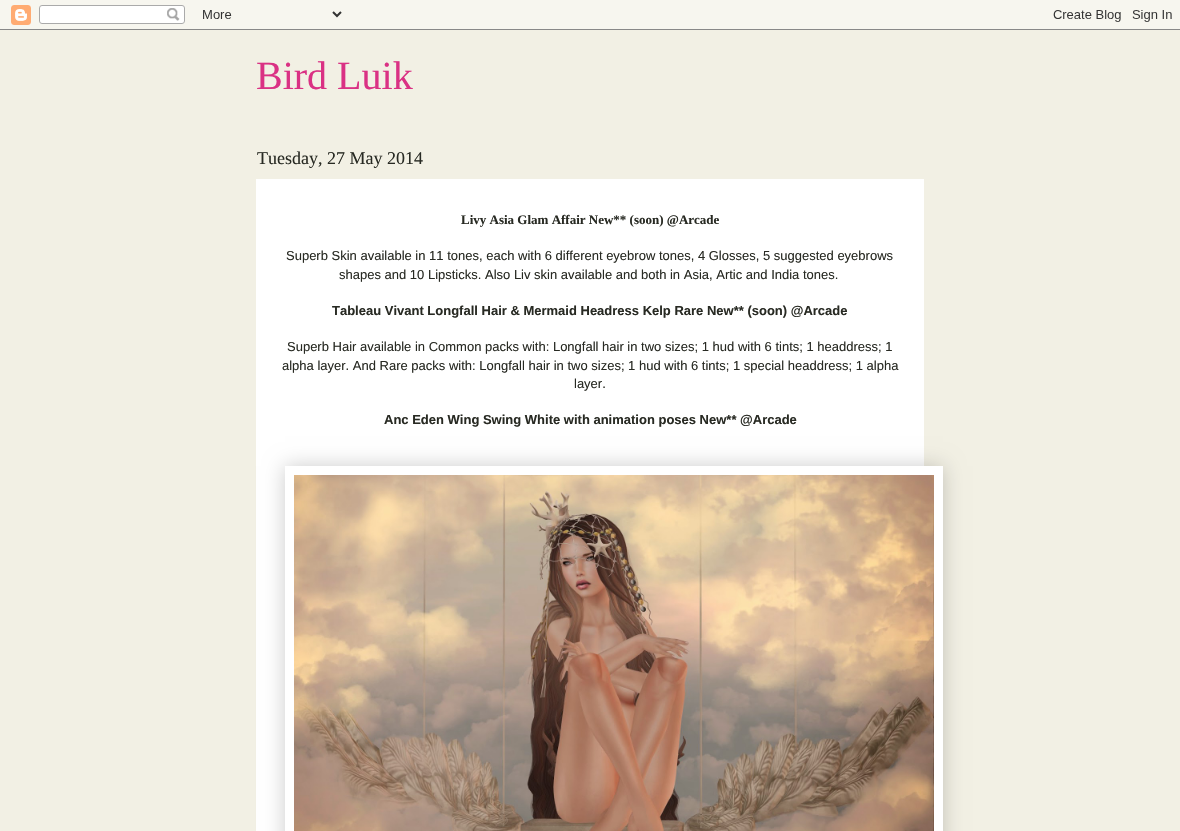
static SkFont makeFont(const char* family, int weight, float size, bool italic = false) {
  SkFontStyle style(weight, SkFontStyle::kNormal_Width,
    italic ? SkFontStyle::kItalic_Slant : SkFontStyle::kUpright_Slant);
  SkFont result(fontMgr->matchFamilyStyle(family, style), size);
  result.setSubpixel(true);
  return result;
}

static void text(SkCanvas* c, const char* s, float x, float y, const SkFont& font, SkColor color) {
  SkPaint ink(SkColor4f::FromColor(color));
  ink.setAntiAlias(true);
  c->drawString(s, x, y, font, ink);
}

static void box(SkCanvas* c, float l, float t, float r, float b, SkColor color) {
  SkPaint ink(SkColor4f::FromColor(color));
  ink.setAntiAlias(true);
  c->drawRect(SkRect::MakeLTRB(l, t, r, b), ink);
}

static void picture(SkCanvas* c, const char* path, float l, float t, float r, float b) {
  auto image = SkImages::DeferredFromEncodedData(SkData::MakeFromFileName(path));
  c->drawImageRect(image, SkRect::MakeLTRB(l, t, r, b), SkSamplingOptions());
}

void draw(SkCanvas* c) {
  SkPaint paint;
  paint.setAntiAlias(true);
  c->clear(0xfff2f0e4);
  picture(c, "img_01.png", 0, 0, 1180, 30);
  SkFont face1 = makeFont("Liberation Serif", 400, 40);
  text(c, "Bird Luik", 256, 89, face1, 0xffda3184);
  box(c, 256, 179, 924, 831, 0xffffffff);
  SkFont face2 = makeFont("Liberation Serif", 400, 18);
  text(c, "Tuesday, 27 May 2014", 257, 164, face2, 0xff282a23);
  SkFont face3 = makeFont("Liberation Serif", 700, 13);
  text(c, "Livy Asia Glam Affair New** (soon) @Arcade", 461, 224, face3, 0xff282a23);
  SkFont face4 = makeFont("Liberation Sans", 400, 13);
  text(c, "Superb Skin available in 11 tones, each with 6 different eyebrow tones, 4 Glosses, 5 suggested eyebrows", 286, 260, face4, 0xff282a23);
  text(c, "shapes and 10 Lipsticks. Also Liv skin available and both in Asia, Artic and India tones.", 339, 279, face4, 0xff282a23);
  SkFont face5 = makeFont("Liberation Sans", 700, 13);
  text(c, "Tableau Vivant Longfall Hair & Mermaid Headress Kelp Rare New** (soon) @Arcade", 332, 315, face5, 0xff282a23);
  text(c, "Superb Hair available in Common packs with: Longfall hair in two sizes; 1 hud with 6 tints; 1 headdress; 1", 287, 351, face4, 0xff282a23);
  text(c, "alpha layer. And Rare packs with: Longfall hair in two sizes; 1 hud with 6 tints; 1 special headdress; 1 alpha", 282, 370, face4, 0xff282a23);
  text(c, "layer.", 574, 388, face4, 0xff282a23);
  text(c, "Anc Eden Wing Swing White with animation poses New** @Arcade", 384, 424, face5, 0xff282a23);
  paint.setColor(0x33000000);
  paint.setMaskFilter(SkMaskFilter::MakeBlur(kNormal_SkBlurStyle, 10));
  c->drawRect(SkRect::MakeLTRB(285, 466, 943, 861), paint);
  paint.setMaskFilter(nullptr);
  box(c, 285, 466, 943, 831, 0xffffffff);
  picture(c, "img_02.png", 294, 475, 934, 831);
}
